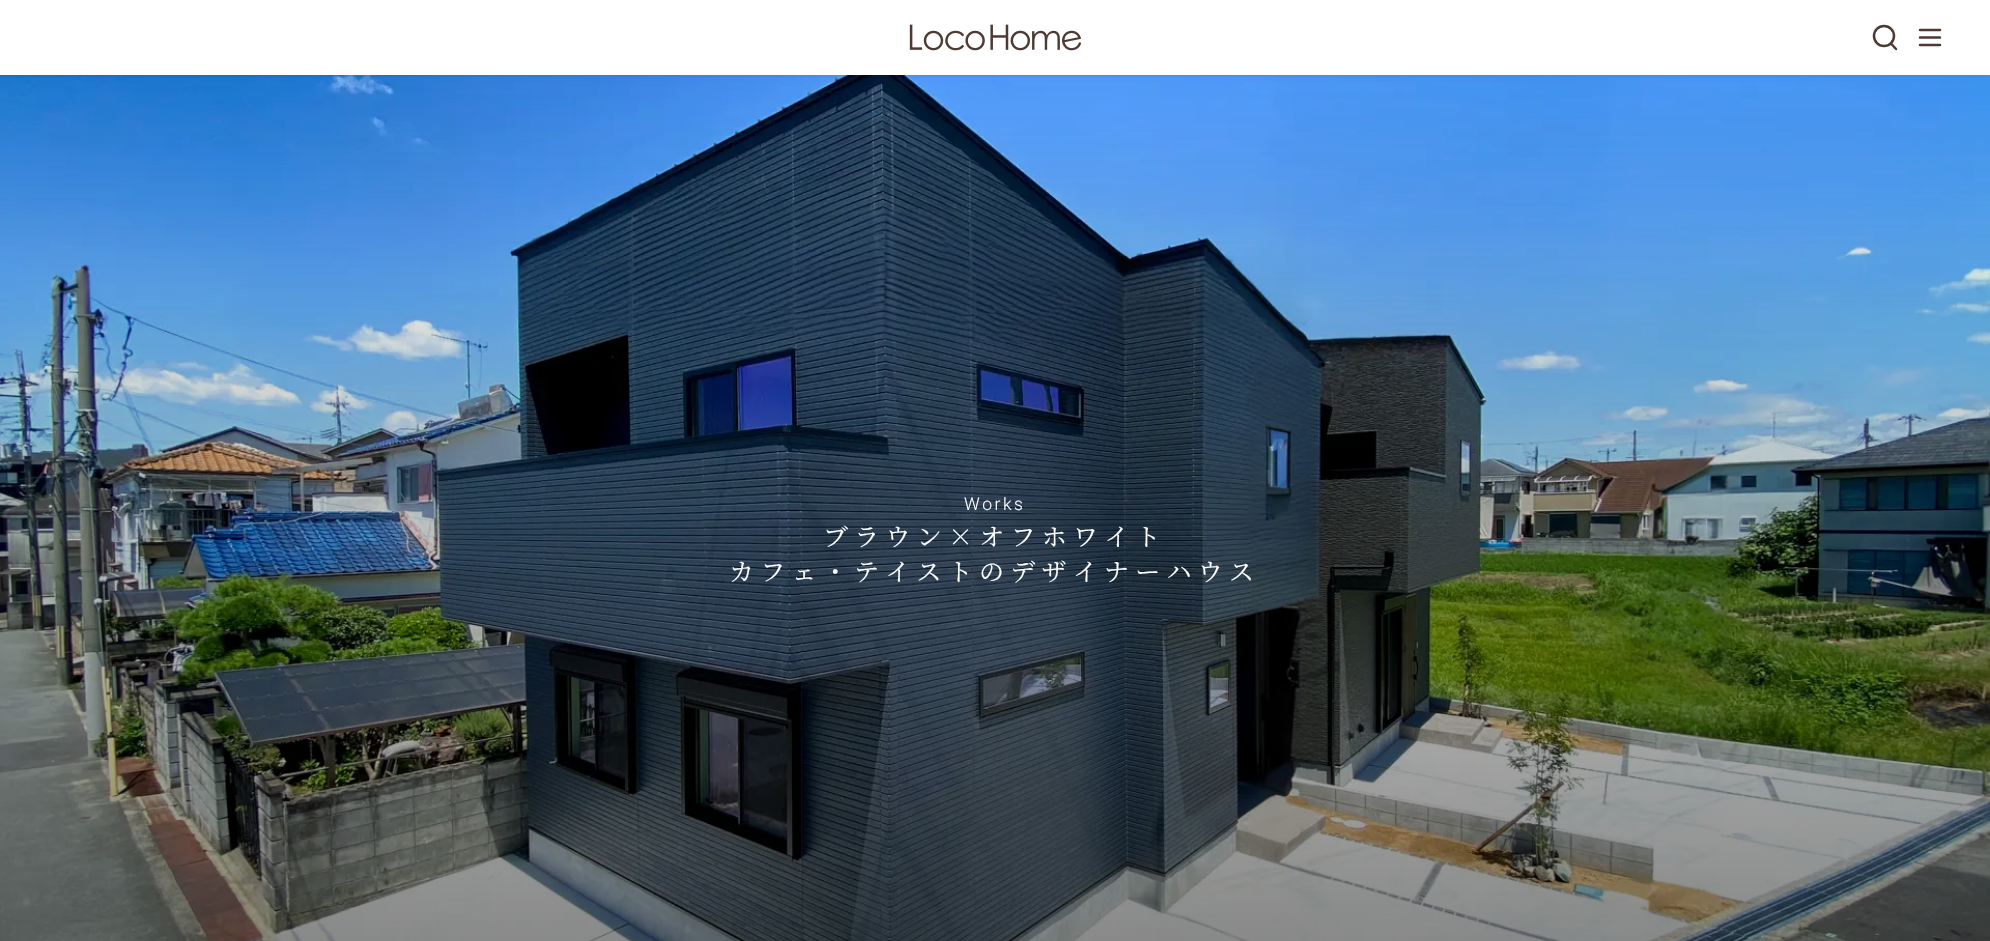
static SkFont makeFont(const char* family, int weight, float size, bool italic = false) {
  SkFontStyle style(weight, SkFontStyle::kNormal_Width,
    italic ? SkFontStyle::kItalic_Slant : SkFontStyle::kUpright_Slant);
  SkFont result(fontMgr->matchFamilyStyle(family, style), size);
  result.setSubpixel(true);
  return result;
}

static void spacedText(SkCanvas* c, const char* s, float x, float y, const SkFont& font, const SkPaint& ink, float letter, float word) {
  std::vector<SkGlyphID> glyphs(font.countText(s, strlen(s), SkTextEncoding::kUTF8));
  std::vector<float> xs(glyphs.size());
  font.textToGlyphs(s, strlen(s), SkTextEncoding::kUTF8, glyphs);
  font.getXPos(glyphs, xs, x);
  float extra = 0;
  for (size_t i = 0; i < glyphs.size(); i++) {
    xs[i] += extra;
    extra += letter + word * (glyphs[i] == font.unicharToGlyph(' '));
  }
  c->drawTextBlob(SkTextBlob::MakeFromPosHGlyphs(glyphs, xs, y, font), 0, 0, ink);
}

static void box(SkCanvas* c, float l, float t, float r, float b, SkColor color) {
  SkPaint ink(SkColor4f::FromColor(color));
  ink.setAntiAlias(true);
  c->drawRect(SkRect::MakeLTRB(l, t, r, b), ink);
}

static void picture(SkCanvas* c, const char* path, float l, float t, float r, float b) {
  auto image = SkImages::DeferredFromEncodedData(SkData::MakeFromFileName(path));
  c->drawImageRect(image, SkRect::MakeLTRB(l, t, r, b), SkSamplingOptions());
}

void draw(SkCanvas* c) {
  SkPaint paint;
  paint.setAntiAlias(true);
  c->clear(0xffffffff);
  picture(c, "img_02.png", 0, 75, 1990, 941);
  paint.setColor(0x1a000000);
  paint.setMaskFilter(SkMaskFilter::MakeBlur(kNormal_SkBlurStyle, 2));
  c->drawRect(SkRect::MakeLTRB(0, 1, 1990, 76), paint);
  paint.setMaskFilter(nullptr);
  box(c, 0, 0, 1990, 75, 0xffffffff);
  picture(c, "img_01.png", 909, 24, 1081, 51);
  paint.setStyle(SkPaint::kStroke_Style);
  paint.setStrokeWidth(2.5f);
  paint.setStrokeCap(SkPaint::kRound_Cap);
  paint.setStrokeJoin(SkPaint::kRound_Join);
  paint.setColor(0xff4d3a33);
  c->drawPath(SkPathBuilder().moveTo(1896, 49).lineTo(1891, 43.5f).detach(), paint);
  paint.setStrokeCap(SkPaint::kButt_Cap);
  paint.setStrokeJoin(SkPaint::kMiter_Join);
  c->drawCircle(1884, 36, 10, paint);
  paint.setStrokeCap(SkPaint::kRound_Cap);
  paint.setStrokeJoin(SkPaint::kRound_Join);
  c->drawPath(SkPathBuilder().moveTo(1920, 37.5f).lineTo(1940, 37.5f).moveTo(1920, 45).lineTo(1940, 45).moveTo(1920, 30).lineTo(1940, 30).detach(), paint);
  SkFont face1 = makeFont("Roboto", 300, 17.5f);
  paint.setStyle(SkPaint::kFill_Style);
  paint.setColor(0xffffffff);
  spacedText(c, "Works", 964, 510, face1, paint, 2.5f, 0);
  SkFont face2 = makeFont("Noto Serif JP", 400, 25);
  spacedText(c, "ブラウン×オフホワイト", 823, 546, face2, paint, 6.25f, 0);
  spacedText(c, "カフェ・テイストのデザイナーハウス", 729, 581, face2, paint, 6.25f, 0);
}
